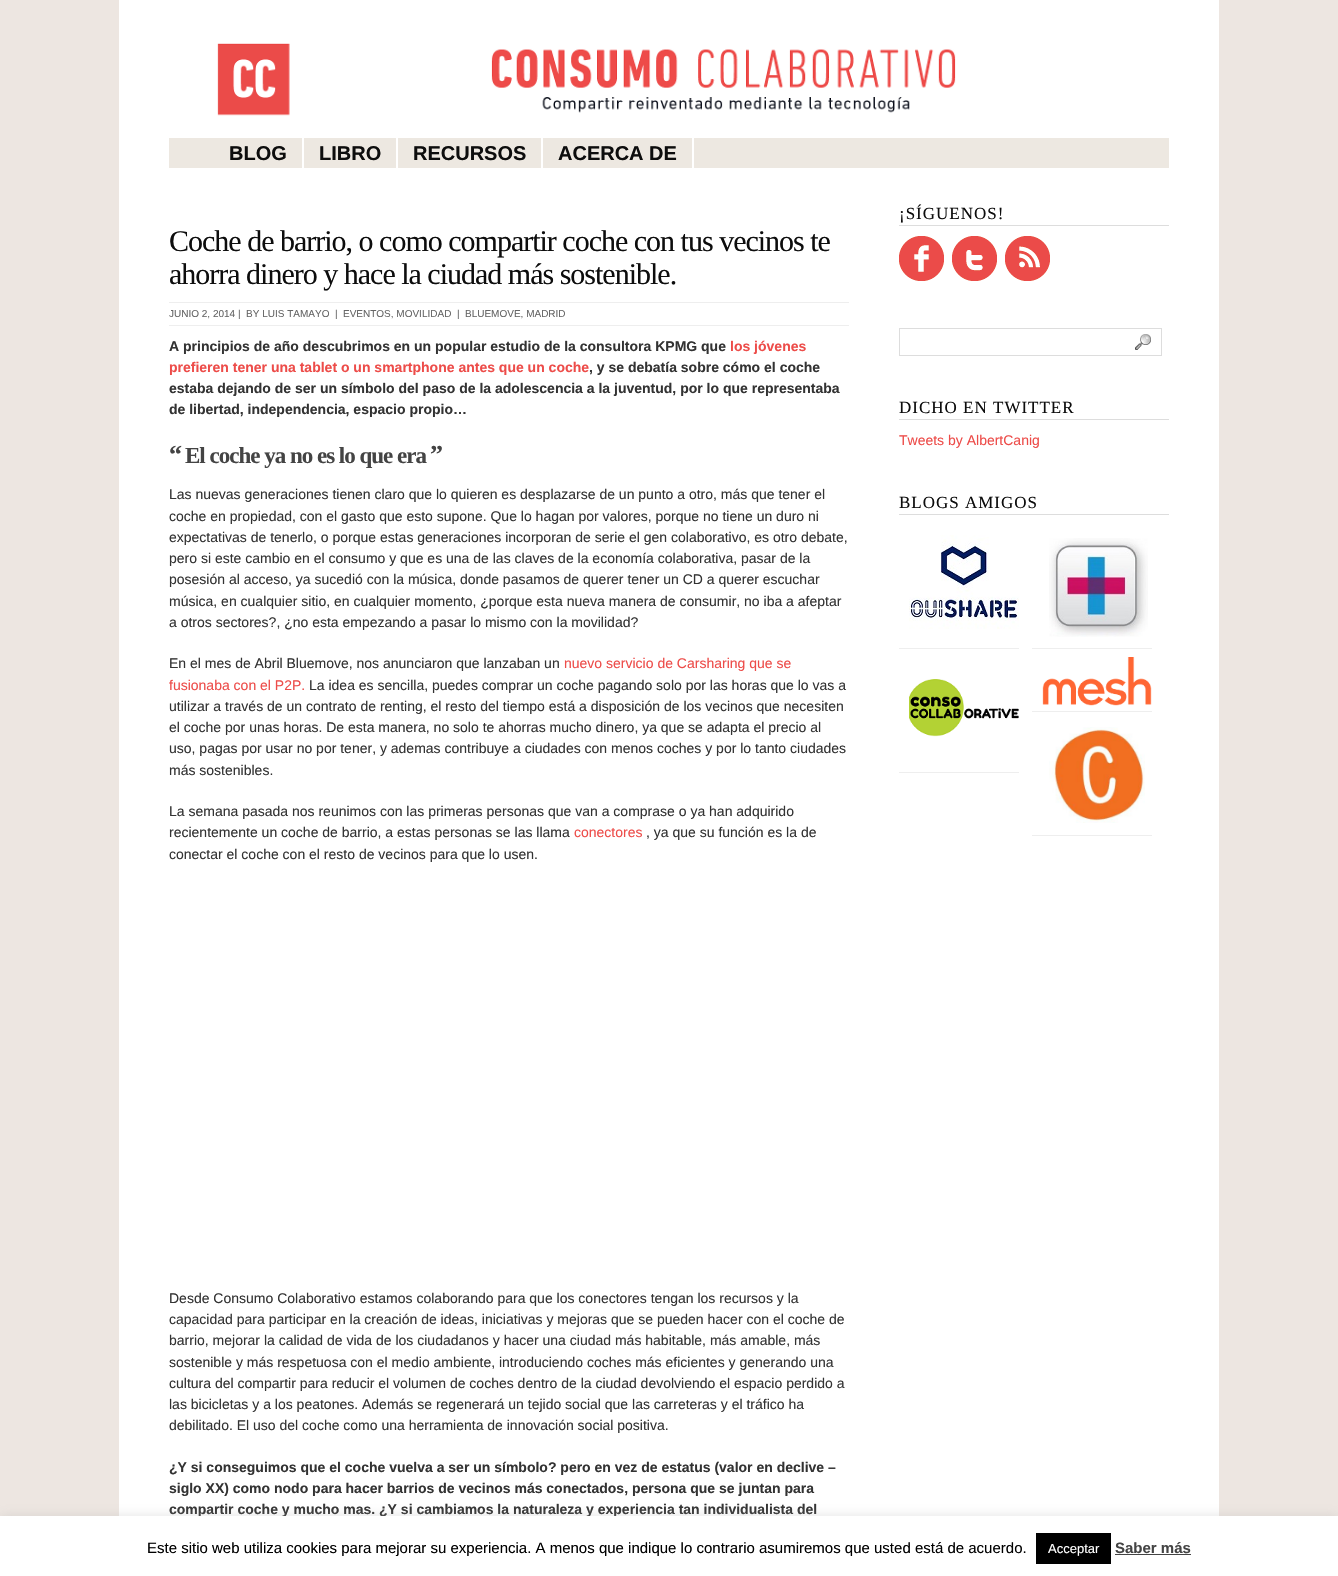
static SkFont makeFont(const char* family, int weight, float size, bool italic = false) {
  SkFontStyle style(weight, SkFontStyle::kNormal_Width,
    italic ? SkFontStyle::kItalic_Slant : SkFontStyle::kUpright_Slant);
  SkFont result(fontMgr->matchFamilyStyle(family, style), size);
  result.setSubpixel(true);
  return result;
}

static void text(SkCanvas* c, const char* s, float x, float y, const SkFont& font, SkColor color) {
  SkPaint ink(SkColor4f::FromColor(color));
  ink.setAntiAlias(true);
  c->drawString(s, x, y, font, ink);
}

static void spacedText(SkCanvas* c, const char* s, float x, float y, const SkFont& font, const SkPaint& ink, float letter, float word) {
  std::vector<SkGlyphID> glyphs(font.countText(s, strlen(s), SkTextEncoding::kUTF8));
  std::vector<float> xs(glyphs.size());
  font.textToGlyphs(s, strlen(s), SkTextEncoding::kUTF8, glyphs);
  font.getXPos(glyphs, xs, x);
  float extra = 0;
  for (size_t i = 0; i < glyphs.size(); i++) {
    xs[i] += extra;
    extra += letter + word * (glyphs[i] == font.unicharToGlyph(' '));
  }
  c->drawTextBlob(SkTextBlob::MakeFromPosHGlyphs(glyphs, xs, y, font), 0, 0, ink);
}

static void box(SkCanvas* c, float l, float t, float r, float b, SkColor color) {
  SkPaint ink(SkColor4f::FromColor(color));
  ink.setAntiAlias(true);
  c->drawRect(SkRect::MakeLTRB(l, t, r, b), ink);
}

static void picture(SkCanvas* c, const char* path, float l, float t, float r, float b) {
  auto image = SkImages::DeferredFromEncodedData(SkData::MakeFromFileName(path));
  c->drawImageRect(image, SkRect::MakeLTRB(l, t, r, b), SkSamplingOptions());
}

void draw(SkCanvas* c) {
  SkPaint paint;
  paint.setAntiAlias(true);
  c->clear(0xffede6e1);
  box(c, 119, 0, 1219, 1516, 0xffffffff);
  picture(c, "img_01.png", 217, 43, 956, 116);
  box(c, 169, 138, 1169, 168, 0xffede8e1);
  box(c, 302, 138, 304, 168, 0xffffffff);
  SkFont face1 = makeFont("Liberation Sans", 700, 20);
  text(c, "BLOG", 229, 160, face1, 0xff0d0d0d);
  box(c, 396, 138, 398, 168, 0xffffffff);
  text(c, "LIBRO", 319, 160, face1, 0xff0d0d0d);
  box(c, 541, 138, 543, 168, 0xffffffff);
  text(c, "RECURSOS", 413, 160, face1, 0xff0d0d0d);
  box(c, 692, 138, 694, 168, 0xffffffff);
  text(c, "ACERCA DE", 558, 160, face1, 0xff0d0d0d);
  SkFont face2 = makeFont("Liberation Serif", 400, 30);
  paint.setColor(0xff0d0d0d);
  spacedText(c, "Coche de barrio, o como compartir coche con tus vecinos te", 169, 251, face2, paint, -1, 0);
  spacedText(c, "ahorra dinero y hace la ciudad más sostenible.", 169, 284, face2, paint, -1, 0);
  box(c, 169, 302, 849, 303, 0xffeeeeee);
  box(c, 169, 325, 849, 326, 0xffeeeeee);
  SkFont face3 = makeFont("Liberation Sans", 400, 10);
  text(c, "JUNIO 2, 2014 |  BY LUIS TAMAYO", 169, 317, face3, 0xff666666);
  text(c, "|", 335, 317, face3, 0xff666666);
  text(c, "EVENTOS, MOVILIDAD", 343, 317, face3, 0xff666666);
  text(c, "|", 457, 317, face3, 0xff666666);
  text(c, "BLUEMOVE, MADRID", 465, 317, face3, 0xff666666);
  SkFont face4 = makeFont("Liberation Sans", 700, 14);
  text(c, "A principios de año descubrimos en un popular estudio de la consultora KPMG que", 169, 351, face4, 0xff333333);
  text(c, "los jóvenes", 730, 351, face4, 0xffed4c49);
  text(c, "prefieren tener una tablet o un smartphone antes que un coche", 169, 372, face4, 0xffed4c49);
  text(c, ", y se debatía sobre cómo el coche", 589, 372, face4, 0xff333333);
  text(c, "estaba dejando de ser un símbolo del paso de la adolescencia a la juventud, por lo que representaba", 169, 393, face4, 0xff333333);
  text(c, "de libertad, independencia, espacio propio…", 169, 414, face4, 0xff333333);
  SkFont face5 = makeFont("Liberation Serif", 700, 26);
  paint.setColor(0xff444444);
  spacedText(c, "“", 169, 463, face5, paint, -1, 0);
  SkFont face6 = makeFont("Liberation Serif", 700, 23);
  spacedText(c, "El coche ya no es lo que era", 185, 463, face6, paint, -1, 0);
  spacedText(c, "”", 430, 463, face5, paint, -1, 0);
  SkFont face7 = makeFont("Liberation Sans", 400, 14);
  text(c, "Las nuevas generaciones tienen claro que lo quieren es desplazarse de un punto a otro, más que tener el", 169, 499, face7, 0xff333333);
  text(c, "coche en propiedad, con el gasto que esto supone. Que lo hagan por valores, porque no tiene un duro ni", 169, 521, face7, 0xff333333);
  text(c, "expectativas de tenerlo, o porque estas generaciones incorporan de serie el gen colaborativo, es otro debate,", 169, 542, face7, 0xff333333);
  text(c, "pero si este cambio en el consumo y que es una de las claves de la economía colaborativa, pasar de la", 169, 563, face7, 0xff333333);
  text(c, "posesión al acceso, ya sucedió con la música, donde pasamos de querer tener un CD a querer escuchar", 169, 584, face7, 0xff333333);
  text(c, "música, en cualquier sitio, en cualquier momento, ¿porque esta nueva manera de consumir, no iba a afeptar", 169, 606, face7, 0xff333333);
  text(c, "a otros sectores?, ¿no esta empezando a pasar lo mismo con la movilidad?", 169, 627, face7, 0xff333333);
  text(c, "En el mes de Abril Bluemove, nos anunciaron que lanzaban un", 169, 668, face7, 0xff333333);
  text(c, "nuevo servicio de Carsharing que se", 564, 668, face7, 0xffed4c49);
  text(c, "fusionaba con el P2P.", 169, 690, face7, 0xffed4c49);
  text(c, "La idea es sencilla, puedes comprar un coche pagando solo por las horas que lo vas a", 309, 690, face7, 0xff333333);
  text(c, "utilizar a través de un contrato de renting, el resto del tiempo está a disposición de los vecinos que necesiten", 169, 711, face7, 0xff333333);
  text(c, "el coche por unas horas. De esta manera, no solo te ahorras mucho dinero, ya que se adapta el precio al", 169, 732, face7, 0xff333333);
  text(c, "uso, pagas por usar no por tener, y ademas contribuye a ciudades con menos coches y por lo tanto ciudades", 169, 753, face7, 0xff333333);
  text(c, "más sostenibles.", 169, 775, face7, 0xff333333);
  text(c, "La semana pasada nos reunimos con las primeras personas que van a comprase o ya han adquirido", 169, 816, face7, 0xff333333);
  text(c, "recientemente un coche de barrio, a estas personas se las llama", 169, 837, face7, 0xff333333);
  text(c, "conectores", 574, 837, face7, 0xffed4c49);
  text(c, ", ya que su función es la de", 646, 837, face7, 0xff333333);
  text(c, "conectar el coche con el resto de vecinos para que lo usen.", 169, 859, face7, 0xff333333);
  text(c, "Desde Consumo Colaborativo estamos colaborando para que los conectores tengan los recursos y la", 169, 1303, face7, 0xff333333);
  text(c, "capacidad para participar en la creación de ideas, iniciativas y mejoras que se pueden hacer con el coche de", 169, 1324, face7, 0xff333333);
  text(c, "barrio, mejorar la calidad de vida de los ciudadanos y hacer una ciudad más habitable, más amable, más", 169, 1345, face7, 0xff333333);
  text(c, "sostenible y más respetuosa con el medio ambiente, introduciendo coches más eficientes y generando una", 169, 1367, face7, 0xff333333);
  text(c, "cultura del compartir para reducir el volumen de coches dentro de la ciudad devolviendo el espacio perdido a", 169, 1388, face7, 0xff333333);
  text(c, "las bicicletas y a los peatones. Además se regenerará un tejido social que las carreteras y el tráfico ha", 169, 1409, face7, 0xff333333);
  text(c, "debilitado. El uso del coche como una herramienta de innovación social positiva.", 169, 1430, face7, 0xff333333);
  text(c, "¿Y si conseguimos que el coche vuelva a ser un símbolo? pero en vez de estatus (valor en declive –", 169, 1472, face4, 0xff333333);
  text(c, "siglo XX) como nodo para hacer barrios de vecinos más conectados, persona que se juntan para", 169, 1493, face4, 0xff333333);
  text(c, "compartir coche y mucho mas. ¿Y si cambiamos la naturaleza y experiencia tan individualista del", 169, 1514, face4, 0xff333333);
  box(c, 899, 225, 1169, 226, 0xffdddddd);
  SkFont face8 = makeFont("Liberation Serif", 400, 17);
  paint.setColor(0xff0d0d0d);
  spacedText(c, "¡SÍGUENOS!", 899, 219, face8, paint, 1, 0);
  picture(c, "img_02.png", 899, 236, 944, 281);
  picture(c, "img_03.png", 952, 236, 997, 281);
  picture(c, "img_04.png", 1005, 236, 1050, 281);
  paint.setStyle(SkPaint::kStroke_Style);
  paint.setStrokeWidth(1);
  paint.setColor(0xffdddddd);
  c->drawRect(SkRect::MakeLTRB(899.5f, 328.5f, 1161.5f, 355.5f), paint);
  picture(c, "img_05.png", 1135, 334, 1151, 350);
  box(c, 899, 419, 1169, 420, 0xffdddddd);
  paint.setStyle(SkPaint::kFill_Style);
  paint.setColor(0xff0d0d0d);
  spacedText(c, "DICHO EN TWITTER", 899, 413, face8, paint, 1, 0);
  text(c, "Tweets by AlbertCanig", 899, 445, face7, 0xffed4c49);
  box(c, 899, 514, 1169, 515, 0xffdddddd);
  spacedText(c, "BLOGS AMIGOS", 899, 508, face8, paint, 1, 0);
  box(c, 899, 648, 1019, 649, 0xffeeeeee);
  picture(c, "img_06.png", 909, 535, 1019, 629);
  box(c, 1032, 648, 1152, 649, 0xffeeeeee);
  picture(c, "img_07.png", 1049, 538, 1148, 637);
  box(c, 899, 772, 1019, 773, 0xffeeeeee);
  picture(c, "img_08.png", 909, 679, 1019, 737);
  box(c, 1032, 711, 1152, 712, 0xffeeeeee);
  picture(c, "img_09.png", 1042, 657, 1152, 706);
  box(c, 1032, 835, 1152, 836, 0xffeeeeee);
  picture(c, "img_10.png", 1049, 727, 1145, 823);
  paint.setColor(0x4dacabab);
  paint.setMaskFilter(SkMaskFilter::MakeBlur(kNormal_SkBlurStyle, 5));
  c->drawRect(SkRect::MakeLTRB(0, 1515, 1338, 1575), paint);
  paint.setMaskFilter(nullptr);
  box(c, 0, 1516, 1338, 1576, 0xffffffff);
  SkFont face9 = makeFont("Liberation Sans", 400, 15);
  text(c, "Este sitio web utiliza cookies para mejorar su experiencia. A menos que indique lo contrario asumiremos que usted está de acuerdo.", 147, 1553, face9, 0xff000000);
  box(c, 1036, 1533, 1111, 1564, 0xff000000);
  SkFont face10 = makeFont("Liberation Sans", 400, 13);
  text(c, "Acceptar", 1048, 1553, face10, 0xffffffff);
  SkFont face11 = makeFont("Liberation Sans", 700, 15);
  text(c, "Saber más", 1115, 1553, face11, 0xff444444);
  box(c, 1115, 1554, 1191, 1555, 0xff444444);
}
